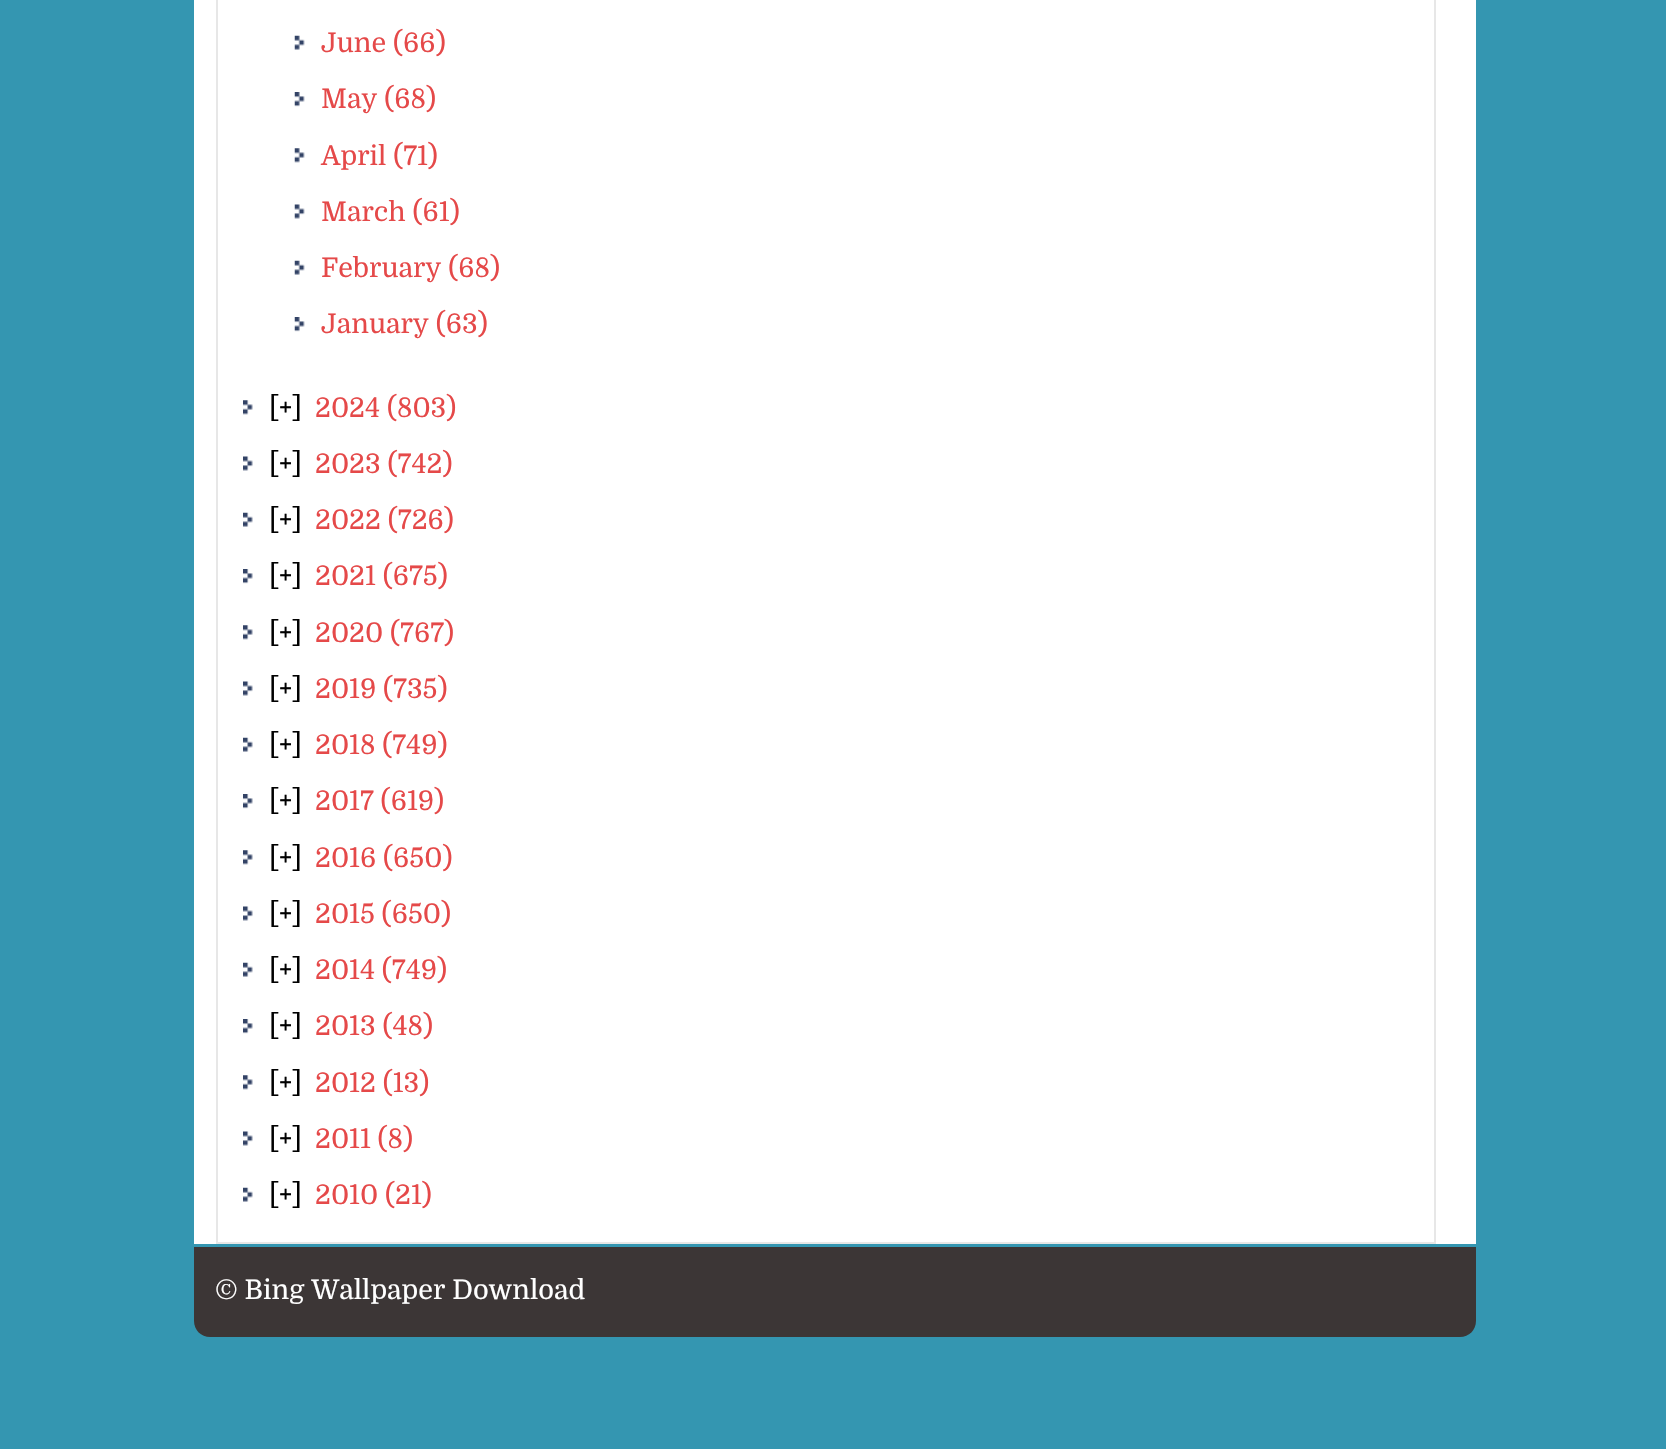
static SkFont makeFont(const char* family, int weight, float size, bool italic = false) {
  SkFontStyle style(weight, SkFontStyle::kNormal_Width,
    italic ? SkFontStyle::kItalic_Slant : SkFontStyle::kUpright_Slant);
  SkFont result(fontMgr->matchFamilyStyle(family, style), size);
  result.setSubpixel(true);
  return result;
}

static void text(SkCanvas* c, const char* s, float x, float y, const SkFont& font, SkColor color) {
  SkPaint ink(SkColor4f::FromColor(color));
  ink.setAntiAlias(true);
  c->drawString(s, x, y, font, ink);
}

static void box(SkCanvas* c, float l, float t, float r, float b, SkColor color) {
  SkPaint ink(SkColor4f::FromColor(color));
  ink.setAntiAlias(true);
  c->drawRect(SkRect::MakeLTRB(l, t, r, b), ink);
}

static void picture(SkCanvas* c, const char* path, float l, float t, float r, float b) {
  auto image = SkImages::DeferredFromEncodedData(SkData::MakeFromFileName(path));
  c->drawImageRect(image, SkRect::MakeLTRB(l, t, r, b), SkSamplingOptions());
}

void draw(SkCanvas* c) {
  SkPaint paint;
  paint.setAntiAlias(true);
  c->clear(0xff3496b1);
  box(c, 194, 0, 1476, 1244, 0xffffffff);
  paint.setStyle(SkPaint::kStroke_Style);
  paint.setStrokeWidth(2);
  paint.setColor(0xffe7e7e7);
  c->drawRect(SkRect::MakeLTRB(217, -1, 1435, 1243), paint);
  picture(c, "img_01.png", 294, 35, 305, 50);
  SkFont face1 = makeFont("Domine", 400, 27);
  text(c, "June (66)", 321, 52, face1, 0xffe54949);
  picture(c, "img_02.png", 294, 92, 305, 107);
  text(c, "May (68)", 321, 108, face1, 0xffe54949);
  picture(c, "img_03.png", 294, 148, 305, 163);
  text(c, "April (71)", 321, 165, face1, 0xffe54949);
  picture(c, "img_04.png", 294, 204, 305, 219);
  text(c, "March (61)", 321, 221, face1, 0xffe54949);
  picture(c, "img_01.png", 294, 260, 305, 275);
  text(c, "February (68)", 321, 277, face1, 0xffe54949);
  picture(c, "img_02.png", 294, 317, 305, 332);
  text(c, "January (63)", 321, 333, face1, 0xffe54949);
  picture(c, "img_05.png", 243, 400, 253, 415);
  text(c, "[+]", 269, 417, face1, 0xff000000);
  text(c, "2024 (803)", 315, 417, face1, 0xffe54949);
  picture(c, "img_06.png", 243, 456, 253, 471);
  text(c, "[+]", 269, 473, face1, 0xff000000);
  text(c, "2023 (742)", 315, 473, face1, 0xffe54949);
  picture(c, "img_07.png", 243, 512, 253, 527);
  text(c, "[+]", 269, 529, face1, 0xff000000);
  text(c, "2022 (726)", 315, 529, face1, 0xffe54949);
  picture(c, "img_08.png", 243, 569, 253, 584);
  text(c, "[+]", 269, 585, face1, 0xff000000);
  text(c, "2021 (675)", 315, 585, face1, 0xffe54949);
  picture(c, "img_05.png", 243, 625, 253, 640);
  text(c, "[+]", 269, 642, face1, 0xff000000);
  text(c, "2020 (767)", 315, 642, face1, 0xffe54949);
  picture(c, "img_06.png", 243, 681, 253, 696);
  text(c, "[+]", 269, 698, face1, 0xff000000);
  text(c, "2019 (735)", 315, 698, face1, 0xffe54949);
  picture(c, "img_07.png", 243, 737, 253, 752);
  text(c, "[+]", 269, 754, face1, 0xff000000);
  text(c, "2018 (749)", 315, 754, face1, 0xffe54949);
  picture(c, "img_08.png", 243, 794, 253, 809);
  text(c, "[+]", 269, 810, face1, 0xff000000);
  text(c, "2017 (619)", 315, 810, face1, 0xffe54949);
  picture(c, "img_05.png", 243, 850, 253, 865);
  text(c, "[+]", 269, 867, face1, 0xff000000);
  text(c, "2016 (650)", 315, 867, face1, 0xffe54949);
  picture(c, "img_09.png", 243, 906, 253, 921);
  text(c, "[+]", 269, 923, face1, 0xff000000);
  text(c, "2015 (650)", 315, 923, face1, 0xffe54949);
  picture(c, "img_07.png", 243, 962, 253, 977);
  text(c, "[+]", 269, 979, face1, 0xff000000);
  text(c, "2014 (749)", 315, 979, face1, 0xffe54949);
  picture(c, "img_08.png", 243, 1019, 253, 1034);
  text(c, "[+]", 269, 1035, face1, 0xff000000);
  text(c, "2013 (48)", 315, 1035, face1, 0xffe54949);
  picture(c, "img_05.png", 243, 1075, 253, 1090);
  text(c, "[+]", 269, 1092, face1, 0xff000000);
  text(c, "2012 (13)", 315, 1092, face1, 0xffe54949);
  picture(c, "img_06.png", 243, 1131, 253, 1146);
  text(c, "[+]", 269, 1148, face1, 0xff000000);
  text(c, "2011 (8)", 315, 1148, face1, 0xffe54949);
  picture(c, "img_07.png", 243, 1187, 253, 1202);
  text(c, "[+]", 269, 1204, face1, 0xff000000);
  text(c, "2010 (21)", 315, 1204, face1, 0xffe54949);
  paint.setStyle(SkPaint::kFill_Style);
  paint.setColor(0xff3c3636);
  c->drawPath(SkPathBuilder().moveTo(194, 1247).lineTo(1476, 1247).lineTo(1476, 1321).cubicTo(1476, 1330, 1469, 1337, 1460, 1337).lineTo(210, 1337).cubicTo(201, 1337, 194, 1330, 194, 1321).close().detach(), paint);
  text(c, "© Bing Wallpaper Download", 215, 1299, face1, 0xffffffff);
}
